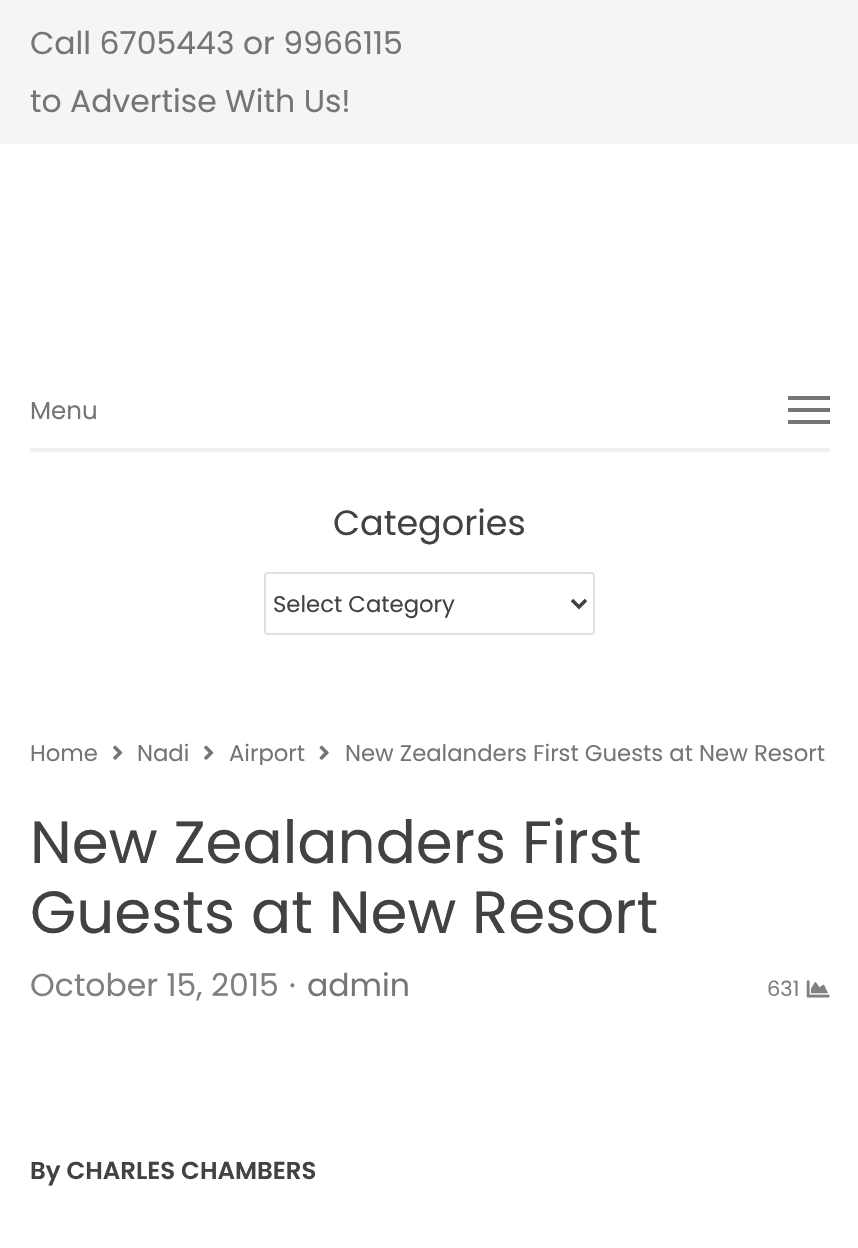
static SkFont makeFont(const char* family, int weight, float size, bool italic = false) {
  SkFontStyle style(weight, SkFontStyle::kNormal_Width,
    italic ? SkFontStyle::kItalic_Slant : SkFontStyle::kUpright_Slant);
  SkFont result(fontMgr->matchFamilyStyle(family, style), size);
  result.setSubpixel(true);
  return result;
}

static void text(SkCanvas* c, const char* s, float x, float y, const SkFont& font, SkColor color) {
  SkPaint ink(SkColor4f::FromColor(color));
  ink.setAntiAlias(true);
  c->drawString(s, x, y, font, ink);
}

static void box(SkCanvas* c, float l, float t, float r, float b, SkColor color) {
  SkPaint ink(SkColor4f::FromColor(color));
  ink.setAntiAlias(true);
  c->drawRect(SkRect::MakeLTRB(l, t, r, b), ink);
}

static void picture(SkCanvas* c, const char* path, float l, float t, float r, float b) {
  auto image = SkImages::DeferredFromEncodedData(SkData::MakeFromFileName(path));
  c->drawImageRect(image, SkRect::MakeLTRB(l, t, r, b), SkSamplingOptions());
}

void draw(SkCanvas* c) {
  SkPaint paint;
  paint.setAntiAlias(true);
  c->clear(0xffffffff);
  box(c, 0, 0, 858, 144, 0xfff5f5f5);
  SkFont face1 = makeFont("Poppins", 400, 31.5f);
  text(c, "Call 6705443 or 9966115", 30, 54, face1, 0xff757575);
  text(c, "to Advertise With Us!", 30, 112, face1, 0xff757575);
  box(c, 30, 448, 830, 452, 0xfff0f0f0);
  SkFont face2 = makeFont("Poppins", 400, 24.5f);
  text(c, "Menu", 30, 419, face2, 0xff757575);
  box(c, 788, 396, 830, 400, 0xff757575);
  box(c, 788, 408, 830, 412, 0xff757575);
  box(c, 788, 420, 830, 424, 0xff757575);
  SkFont face3 = makeFont("Poppins", 400, 35);
  text(c, "Categories", 333, 535, face3, 0xff424242);
  paint.setStyle(SkPaint::kStroke_Style);
  paint.setStrokeWidth(2);
  paint.setColor(0xffe0e0e0);
  c->drawRoundRect(SkRect::MakeLTRB(265, 573, 594, 634), 3, 3, paint);
  paint.setStrokeWidth(3.5f);
  paint.setColor(0xff424242);
  c->drawPath(SkPathBuilder().moveTo(572, 600).lineTo(579, 607).lineTo(586, 600).detach(), paint);
  SkFont face4 = makeFont("Poppins", 400, 22.75f);
  text(c, "Select Category", 273, 612, face4, 0xff424242);
  text(c, "Home", 30, 761, face4, 0xff757575);
  picture(c, "img_01.png", 113, 745, 123, 760);
  text(c, "Nadi", 137, 761, face4, 0xff757575);
  picture(c, "img_01.png", 204, 745, 214, 760);
  c->save();
  c->clipRect(SkRect::MakeLTRB(30, 730, 830, 765));
  text(c, "Airport", 229, 761, face4, 0xff757575);
  c->restore();
  picture(c, "img_02.png", 319, 745, 329, 760);
  text(c, "New Zealanders First Guests at New Resort", 345, 761, face4, 0xff757575);
  SkFont face5 = makeFont("Poppins", 400, 59.5f);
  text(c, "New Zealanders First", 30, 863, face5, 0xff424242);
  text(c, "Guests at New Resort", 30, 933, face5, 0xff424242);
  text(c, "October 15, 2015", 30, 996, face1, 0xff808080);
  text(c, "·", 289, 996, face1, 0xff808080);
  text(c, "admin", 307, 996, face1, 0xff757575);
  SkFont face6 = makeFont("Poppins", 400, 21);
  text(c, "631", 767, 996, face6, 0xff808080);
  picture(c, "img_03.png", 806, 980, 830, 998);
  SkFont face7 = makeFont("Poppins", 600, 24.5f);
  text(c, "By CHARLES CHAMBERS", 30, 1179, face7, 0xff424242);
}
